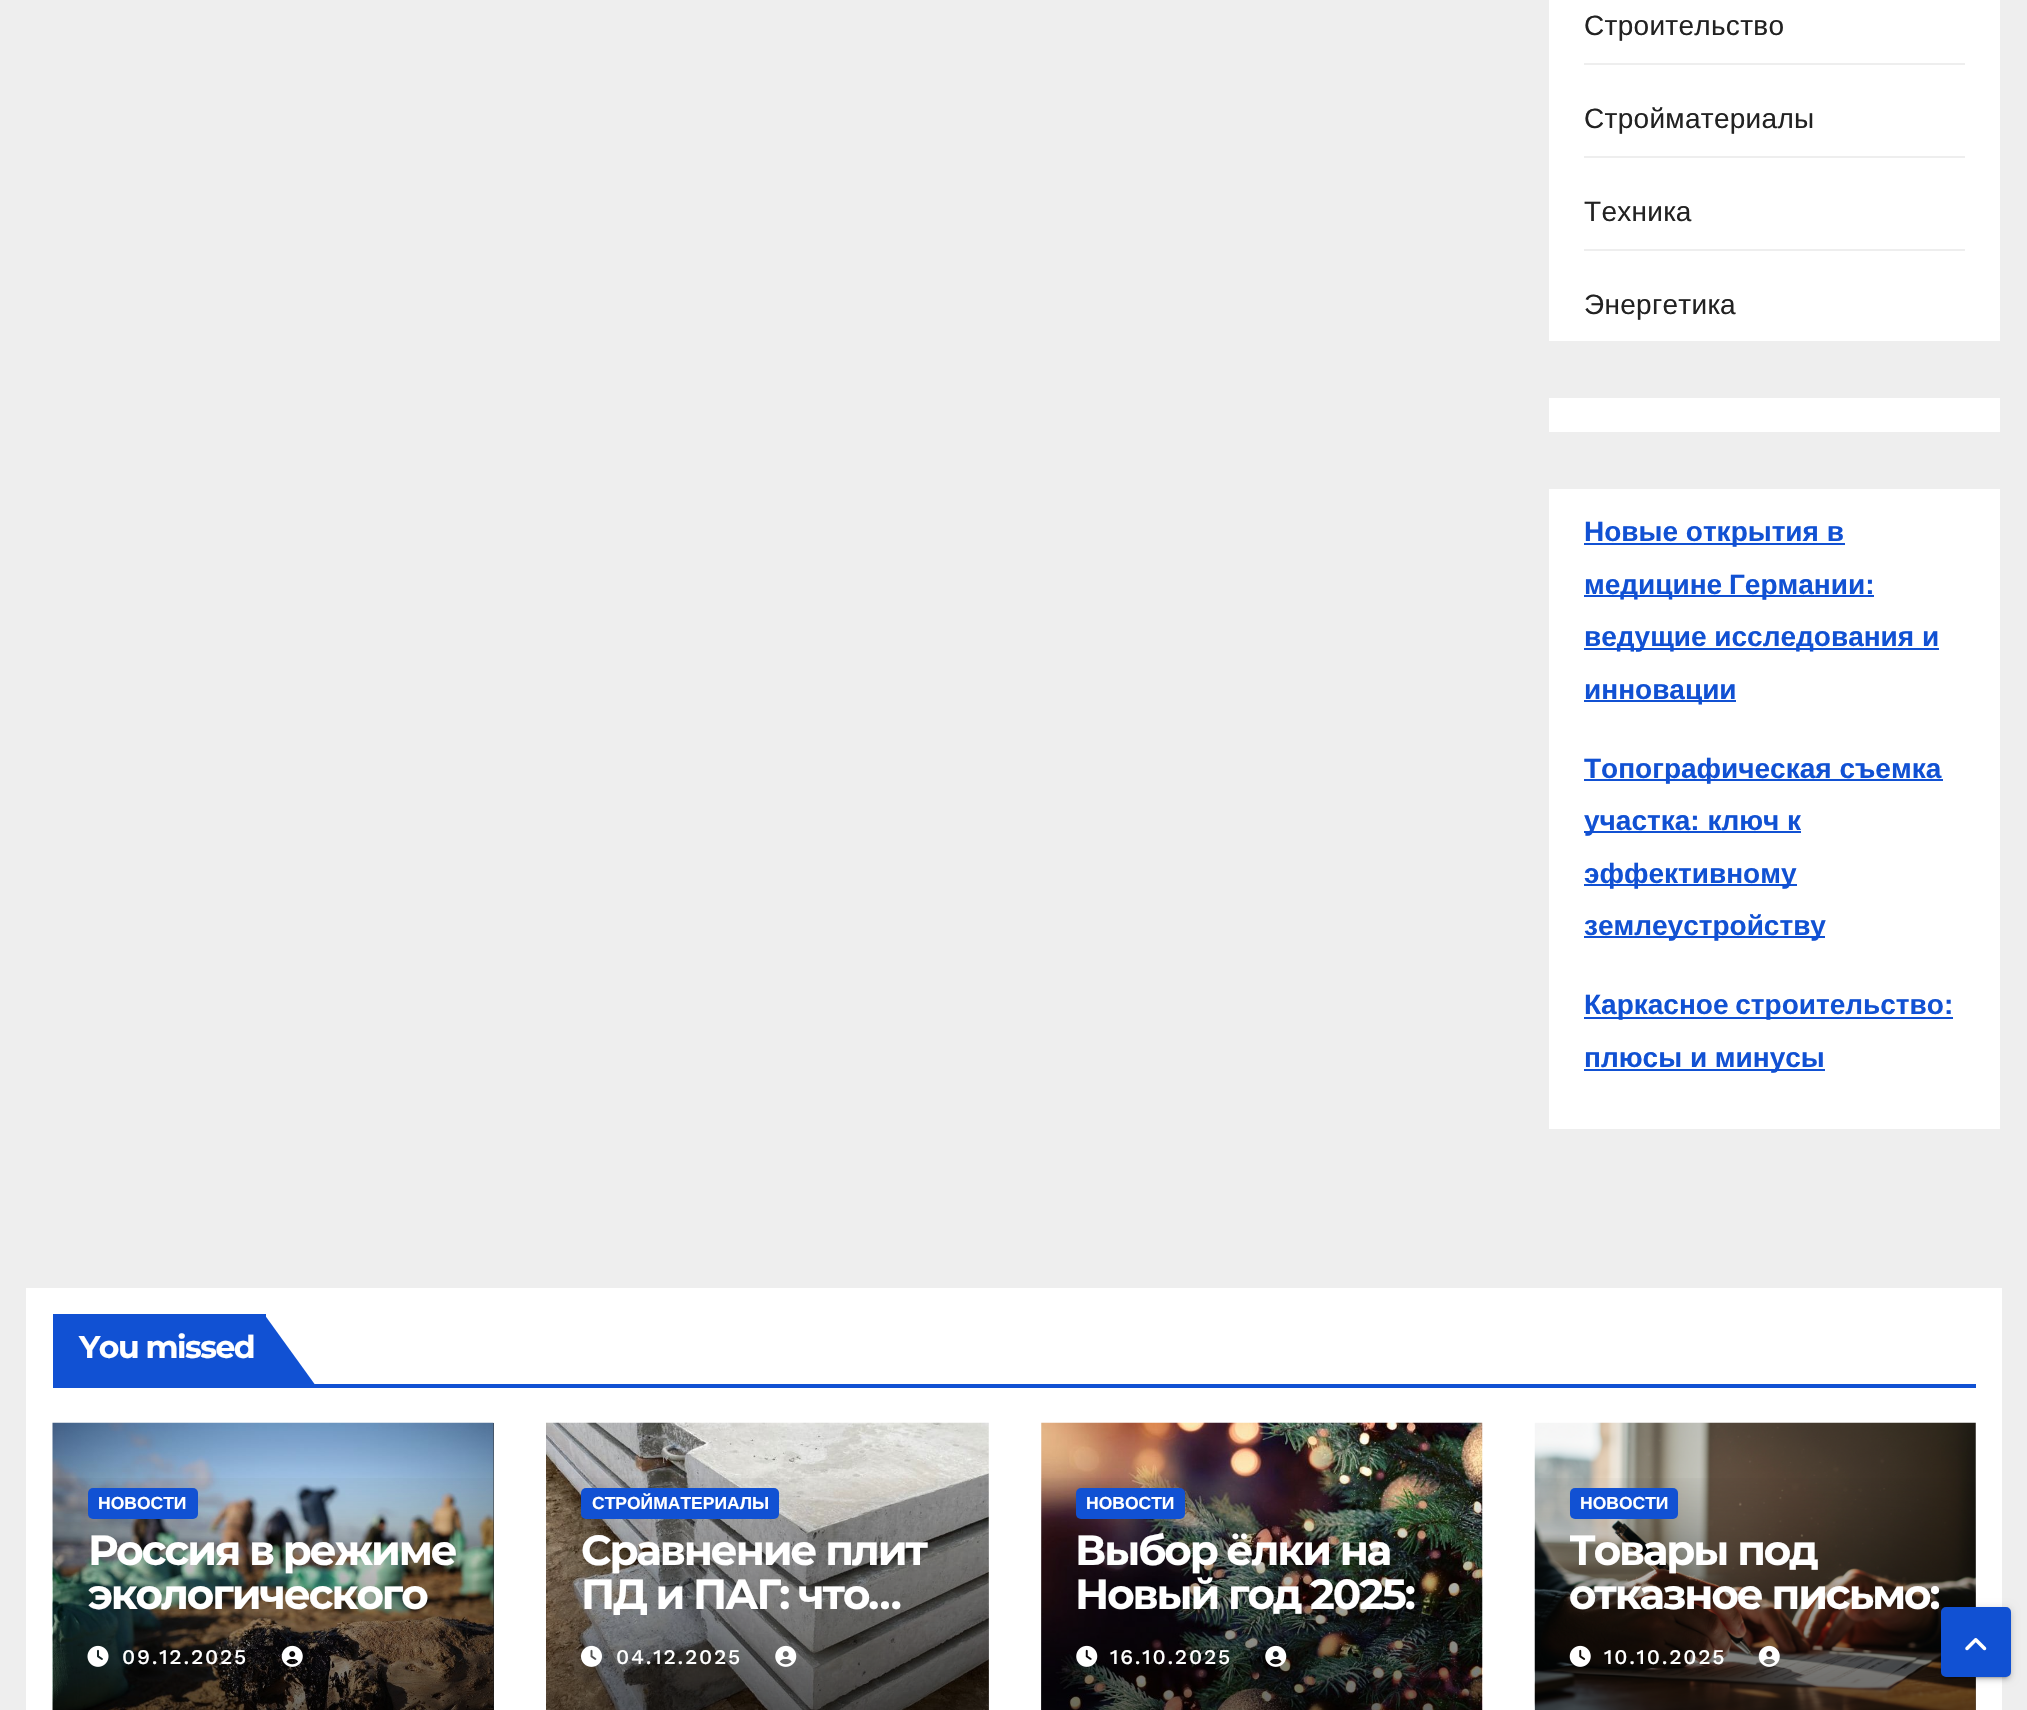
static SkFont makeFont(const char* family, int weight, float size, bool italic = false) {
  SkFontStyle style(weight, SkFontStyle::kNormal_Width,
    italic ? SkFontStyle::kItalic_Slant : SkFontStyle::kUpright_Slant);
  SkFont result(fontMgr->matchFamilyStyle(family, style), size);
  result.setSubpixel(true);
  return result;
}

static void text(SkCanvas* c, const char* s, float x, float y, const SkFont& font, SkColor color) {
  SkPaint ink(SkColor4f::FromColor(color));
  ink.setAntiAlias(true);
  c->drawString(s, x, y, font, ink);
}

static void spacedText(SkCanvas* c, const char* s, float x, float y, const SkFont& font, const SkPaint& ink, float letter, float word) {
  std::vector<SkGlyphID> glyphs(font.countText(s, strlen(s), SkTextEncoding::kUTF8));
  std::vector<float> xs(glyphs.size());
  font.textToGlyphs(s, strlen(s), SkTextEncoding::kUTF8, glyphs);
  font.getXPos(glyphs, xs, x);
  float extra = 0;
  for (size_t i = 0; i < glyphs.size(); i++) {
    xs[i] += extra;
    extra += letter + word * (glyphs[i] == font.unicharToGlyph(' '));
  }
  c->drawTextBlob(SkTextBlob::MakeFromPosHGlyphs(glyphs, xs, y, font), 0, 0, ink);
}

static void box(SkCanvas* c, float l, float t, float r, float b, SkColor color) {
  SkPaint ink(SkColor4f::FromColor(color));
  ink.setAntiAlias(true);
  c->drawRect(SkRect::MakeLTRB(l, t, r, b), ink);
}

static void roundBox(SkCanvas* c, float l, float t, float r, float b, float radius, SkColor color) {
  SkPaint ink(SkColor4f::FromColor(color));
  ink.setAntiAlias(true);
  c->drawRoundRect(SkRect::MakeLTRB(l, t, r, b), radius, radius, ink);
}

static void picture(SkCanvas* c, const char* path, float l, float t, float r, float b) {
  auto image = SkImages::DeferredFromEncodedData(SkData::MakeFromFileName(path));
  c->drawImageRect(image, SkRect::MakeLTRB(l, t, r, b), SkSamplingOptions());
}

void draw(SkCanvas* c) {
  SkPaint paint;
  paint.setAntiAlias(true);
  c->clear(0xffeeeeee);
  box(c, 1549, 0, 2000, 341, 0xffffffff);
  box(c, 1584, 63, 1965, 65, 0xffeeeeee);
  SkFont face1 = makeFont("Liberation Sans", 400, 28);
  paint.setColor(0xff222222);
  spacedText(c, "Строительство", 1584, 35, face1, paint, 0.3f, 0);
  box(c, 1584, 156, 1965, 158, 0xffeeeeee);
  spacedText(c, "Стройматериалы", 1584, 128, face1, paint, 0.3f, 0);
  box(c, 1584, 249, 1965, 251, 0xffeeeeee);
  spacedText(c, "Техника", 1584, 221, face1, paint, 0.3f, 0);
  spacedText(c, "Энергетика", 1584, 314, face1, paint, 0.3f, 0);
  box(c, 1549, 398, 2000, 432, 0xffffffff);
  box(c, 1549, 489, 2000, 1129, 0xffffffff);
  box(c, 1584, 543, 1845, 545, 0xff1151d3);
  SkFont face2 = makeFont("Liberation Sans", 700, 28);
  text(c, "Новые открытия в", 1584, 541, face2, 0xff1151d3);
  box(c, 1584, 595, 1874, 597, 0xff1151d3);
  paint.setColor(0xff1151d3);
  spacedText(c, "медицине Германии:", 1584, 594, face2, paint, 0, -1);
  box(c, 1584, 648, 1939, 650, 0xff1151d3);
  text(c, "ведущие исследования и", 1584, 646, face2, 0xff1151d3);
  box(c, 1584, 700, 1736, 702, 0xff1151d3);
  text(c, "инновации", 1584, 699, face2, 0xff1151d3);
  box(c, 1584, 779, 1943, 781, 0xff1151d3);
  text(c, "Топографическая съемка", 1584, 778, face2, 0xff1151d3);
  box(c, 1584, 831, 1801, 833, 0xff1151d3);
  text(c, "участка: ключ к", 1584, 830, face2, 0xff1151d3);
  box(c, 1584, 884, 1797, 886, 0xff1151d3);
  text(c, "эффективному", 1584, 883, face2, 0xff1151d3);
  box(c, 1584, 936, 1825, 938, 0xff1151d3);
  text(c, "землеустройству", 1584, 935, face2, 0xff1151d3);
  box(c, 1584, 1017, 1953, 1019, 0xff1151d3);
  spacedText(c, "Каркасное строительство:", 1584, 1014, face2, paint, 0, -1);
  box(c, 1584, 1069, 1825, 1071, 0xff1151d3);
  text(c, "плюсы и минусы", 1584, 1067, face2, 0xff1151d3);
  box(c, 26, 1288, 2002, 1710, 0xffffffff);
  box(c, 53, 1384, 1976, 1388, 0xff1151d3);
  box(c, 53, 1314, 266, 1384, 0xff1151d3);
  SkFont face3 = makeFont("Montserrat", 700, 31.5f);
  paint.setColor(0xffffffff);
  spacedText(c, "You missed", 79, 1358, face3, paint, -1.5f, 0);
  paint.setColor(0xff1151d3);
  c->drawPath(SkPathBuilder().moveTo(264, 1314).lineTo(264, 1386).lineTo(316, 1386).close().detach(), paint);
  box(c, 493, 1423, 494, 1710, 0xff333333);
  picture(c, "img_01.png", 52, 1422, 494, 1710);
  {
    const SkColor colors[] = {0x00000000, 0x66000000, 0xb3000000};
    const float stops[] = {0, 0.5f, 1};
    const SkPoint ends[] = {{273, 1470}, {273, 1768}};
    paint.setShader(SkGradientShader::MakeLinear(ends, colors, stops, 3, SkTileMode::kClamp));
    paint.setAlpha(255);
  }
  c->drawRect(SkRect::MakeLTRB(53, 1478, 494, 1710), paint);
  roundBox(c, 88, 1488, 198, 1519, 5, 0xff1151d3);
  SkFont face4 = makeFont("Liberation Sans", 700, 17.5f);
  text(c, "НОВОСТИ", 98, 1509, face4, 0xffffffff);
  SkFont face5 = makeFont("Montserrat", 700, 42);
  paint.setShader(nullptr);
  paint.setColor(0xffffffff);
  spacedText(c, "Россия в режиме", 88, 1565, face5, paint, -2.1f, 0);
  spacedText(c, "экологического", 88, 1609, face5, paint, -2.1f, 0);
  picture(c, "img_02.png", 87, 1645, 109, 1667);
  SkFont face6 = makeFont("Work Sans", 500, 21);
  spacedText(c, "09.12.2025", 122, 1664, face6, paint, 1.75f, 0);
  picture(c, "img_03.png", 281, 1645, 303, 1667);
  picture(c, "img_04.png", 546, 1422, 989, 1710);
  {
    const SkColor colors[] = {0x00000000, 0x66000000, 0xb3000000};
    const float stops[] = {0, 0.5f, 1};
    const SkPoint ends[] = {{767, 1470}, {767, 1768}};
    paint.setShader(SkGradientShader::MakeLinear(ends, colors, stops, 3, SkTileMode::kClamp));
    paint.setAlpha(255);
  }
  c->drawRect(SkRect::MakeLTRB(546, 1478, 989, 1710), paint);
  roundBox(c, 581, 1488, 779, 1519, 5, 0xff1151d3);
  text(c, "СТРОЙМАТЕРИАЛЫ", 592, 1509, face4, 0xffffffff);
  paint.setShader(nullptr);
  paint.setColor(0xffffffff);
  spacedText(c, "Сравнение плит", 581, 1565, face5, paint, -2.1f, 0);
  c->save();
  c->clipRect(SkRect::MakeLTRB(581, 1528, 954, 1615));
  spacedText(c, "ПД и ПАГ: что…", 581, 1609, face5, paint, -2.1f, 0);
  c->restore();
  picture(c, "img_05.png", 581, 1645, 602, 1667);
  spacedText(c, "04.12.2025", 616, 1664, face6, paint, 1.75f, 0);
  picture(c, "img_06.png", 775, 1645, 797, 1667);
  picture(c, "img_07.png", 1041, 1422, 1483, 1710);
  {
    const SkColor colors[] = {0x00000000, 0x66000000, 0xb3000000};
    const float stops[] = {0, 0.5f, 1};
    const SkPoint ends[] = {{1262, 1470}, {1262, 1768}};
    paint.setShader(SkGradientShader::MakeLinear(ends, colors, stops, 3, SkTileMode::kClamp));
    paint.setAlpha(255);
  }
  c->drawRect(SkRect::MakeLTRB(1041, 1478, 1482, 1710), paint);
  roundBox(c, 1076, 1488, 1185, 1519, 5, 0xff1151d3);
  text(c, "НОВОСТИ", 1086, 1509, face4, 0xffffffff);
  paint.setShader(nullptr);
  paint.setColor(0xffffffff);
  spacedText(c, "Выбор ёлки на", 1075, 1565, face5, paint, -2.1f, 0);
  spacedText(c, "Новый год 2025:", 1075, 1609, face5, paint, -2.1f, 0);
  picture(c, "img_08.png", 1076, 1645, 1098, 1667);
  spacedText(c, "16.10.2025", 1110, 1664, face6, paint, 1.75f, 0);
  picture(c, "img_09.png", 1265, 1645, 1287, 1667);
  picture(c, "img_10.png", 1534, 1422, 1976, 1710);
  {
    const SkColor colors[] = {0x00000000, 0x66000000, 0xb3000000};
    const float stops[] = {0, 0.5f, 1};
    const SkPoint ends[] = {{1755, 1470}, {1755, 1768}};
    paint.setShader(SkGradientShader::MakeLinear(ends, colors, stops, 3, SkTileMode::kClamp));
    paint.setAlpha(255);
  }
  c->drawRect(SkRect::MakeLTRB(1535, 1478, 1976, 1710), paint);
  roundBox(c, 1570, 1488, 1678, 1519, 5, 0xff1151d3);
  text(c, "НОВОСТИ", 1580, 1509, face4, 0xffffffff);
  c->save();
  c->clipRect(SkRect::MakeLTRB(1570, 1528, 1941, 1615));
  paint.setShader(nullptr);
  paint.setColor(0xffffffff);
  spacedText(c, "Товары под", 1569, 1565, face5, paint, -2.1f, 0);
  c->restore();
  spacedText(c, "отказное письмо:", 1569, 1609, face5, paint, -2.1f, 0);
  picture(c, "img_11.png", 1569, 1645, 1591, 1667);
  spacedText(c, "10.10.2025", 1604, 1664, face6, paint, 1.75f, 0);
  picture(c, "img_12.png", 1758, 1645, 1780, 1667);
  paint.setColor(0x1f000000);
  paint.setMaskFilter(SkMaskFilter::MakeBlur(kNormal_SkBlurStyle, 4.5f));
  c->drawRoundRect(SkRect::MakeLTRB(1941, 1608, 2011, 1678), 5, 5, paint);
  paint.setMaskFilter(nullptr);
  paint.setColor(0x33000000);
  paint.setMaskFilter(SkMaskFilter::MakeBlur(kNormal_SkBlurStyle, 1));
  c->drawRoundRect(SkRect::MakeLTRB(1944, 1615, 2007, 1678), 2, 2, paint);
  paint.setMaskFilter(nullptr);
  paint.setColor(0x24000000);
  paint.setMaskFilter(SkMaskFilter::MakeBlur(kNormal_SkBlurStyle, 2));
  c->drawRoundRect(SkRect::MakeLTRB(1941, 1610, 2011, 1680), 5, 5, paint);
  paint.setMaskFilter(nullptr);
  paint.setColor(0xff1151d3);
  c->drawRoundRect(SkRect::MakeLTRB(1943, 1609, 2009, 1675), 3, 3, paint);
  paint.setStyle(SkPaint::kStroke_Style);
  paint.setStrokeWidth(4);
  c->drawRoundRect(SkRect::MakeLTRB(1943, 1609, 2009, 1675), 3, 3, paint);
  picture(c, "img_13.png", 1965, 1638, 1987, 1651);
}
